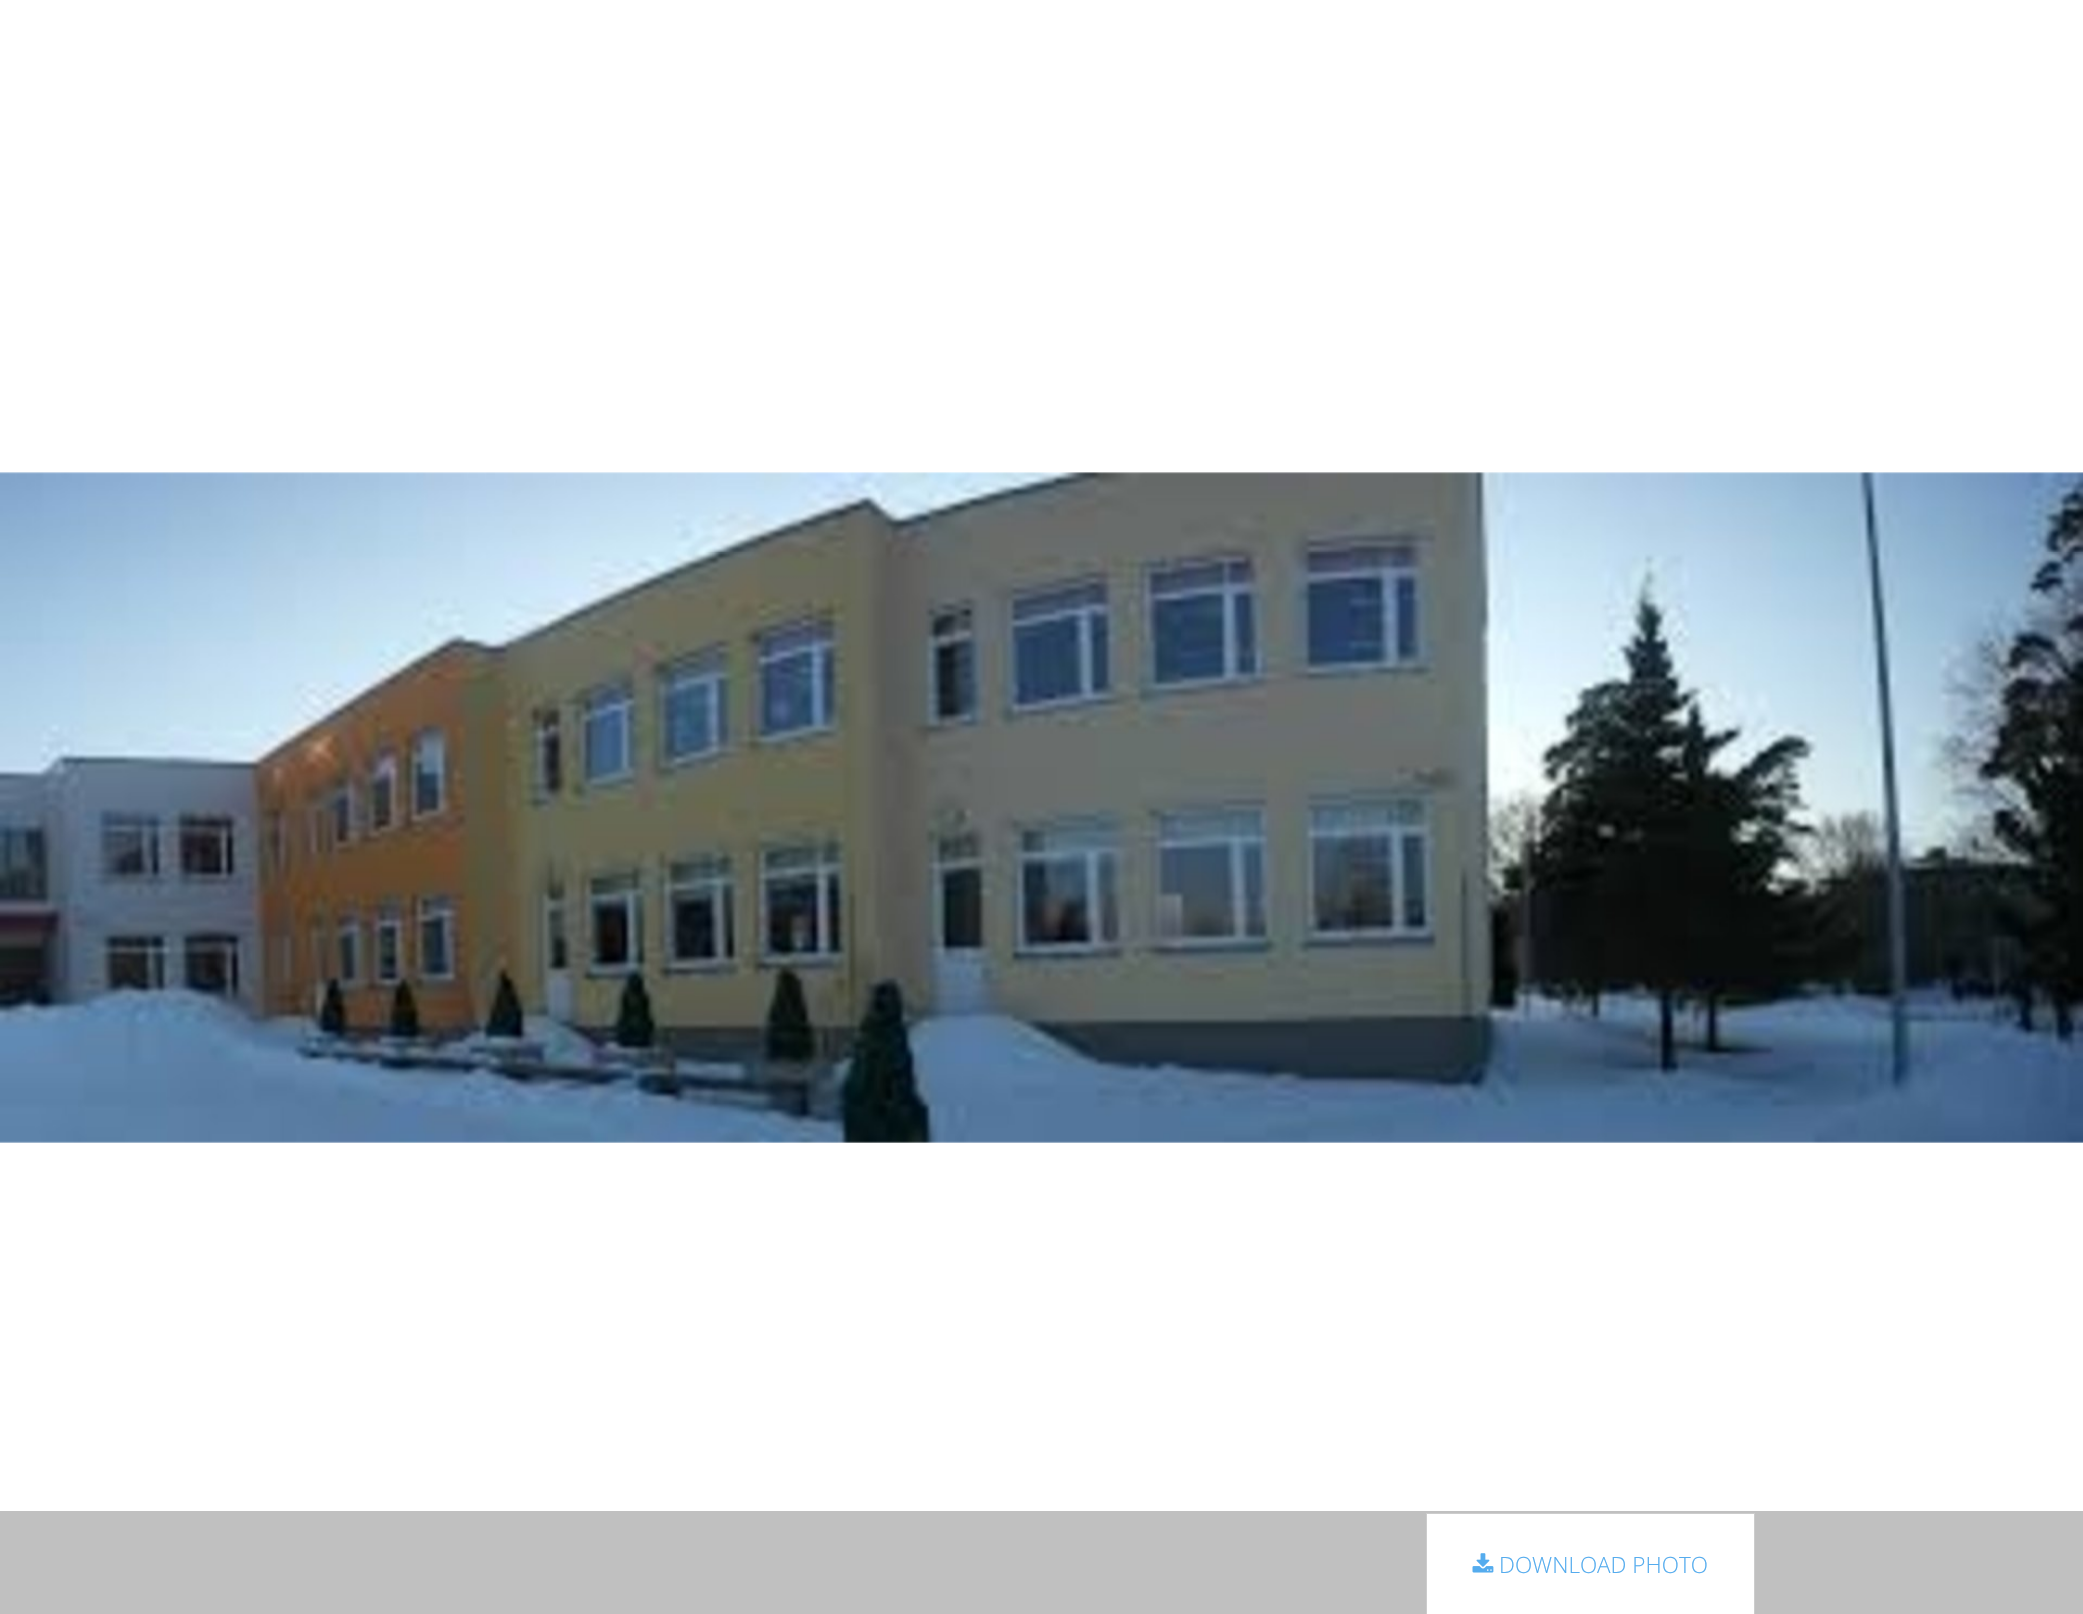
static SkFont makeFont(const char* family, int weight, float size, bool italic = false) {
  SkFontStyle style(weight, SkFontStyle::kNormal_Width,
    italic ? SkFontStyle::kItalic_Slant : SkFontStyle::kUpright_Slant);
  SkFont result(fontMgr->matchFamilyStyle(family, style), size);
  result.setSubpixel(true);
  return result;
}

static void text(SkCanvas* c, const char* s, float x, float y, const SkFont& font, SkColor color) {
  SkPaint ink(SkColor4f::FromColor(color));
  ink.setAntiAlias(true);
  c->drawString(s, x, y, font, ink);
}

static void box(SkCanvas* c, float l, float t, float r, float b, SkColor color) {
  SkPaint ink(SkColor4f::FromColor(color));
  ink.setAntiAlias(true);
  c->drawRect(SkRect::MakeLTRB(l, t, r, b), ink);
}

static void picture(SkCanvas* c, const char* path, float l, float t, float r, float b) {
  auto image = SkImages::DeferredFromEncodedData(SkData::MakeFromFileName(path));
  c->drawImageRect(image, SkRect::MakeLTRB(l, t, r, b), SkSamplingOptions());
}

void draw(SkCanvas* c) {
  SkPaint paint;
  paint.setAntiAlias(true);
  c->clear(0xffffffff);
  picture(c, "img_01.png", 0, 472, 2083, 1143);
  box(c, 0, 1511, 2083, 1614, 0xffc0c0c0);
  paint.setColor(0xffffffff);
  c->drawRect(SkRect::MakeLTRB(1426.5f, 1513.5f, 1754.5f, 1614.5f), paint);
  paint.setStyle(SkPaint::kStroke_Style);
  paint.setStrokeWidth(1);
  paint.setColor(0xffcccccc);
  c->drawRect(SkRect::MakeLTRB(1426.5f, 1513.5f, 1754.5f, 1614.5f), paint);
  picture(c, "img_02.png", 1472, 1553, 1494, 1573);
  SkFont face1 = makeFont("Open Sans", 300, 22.5f);
  text(c, "DOWNLOAD PHOTO", 1499, 1573, face1, 0xff55acee);
}
